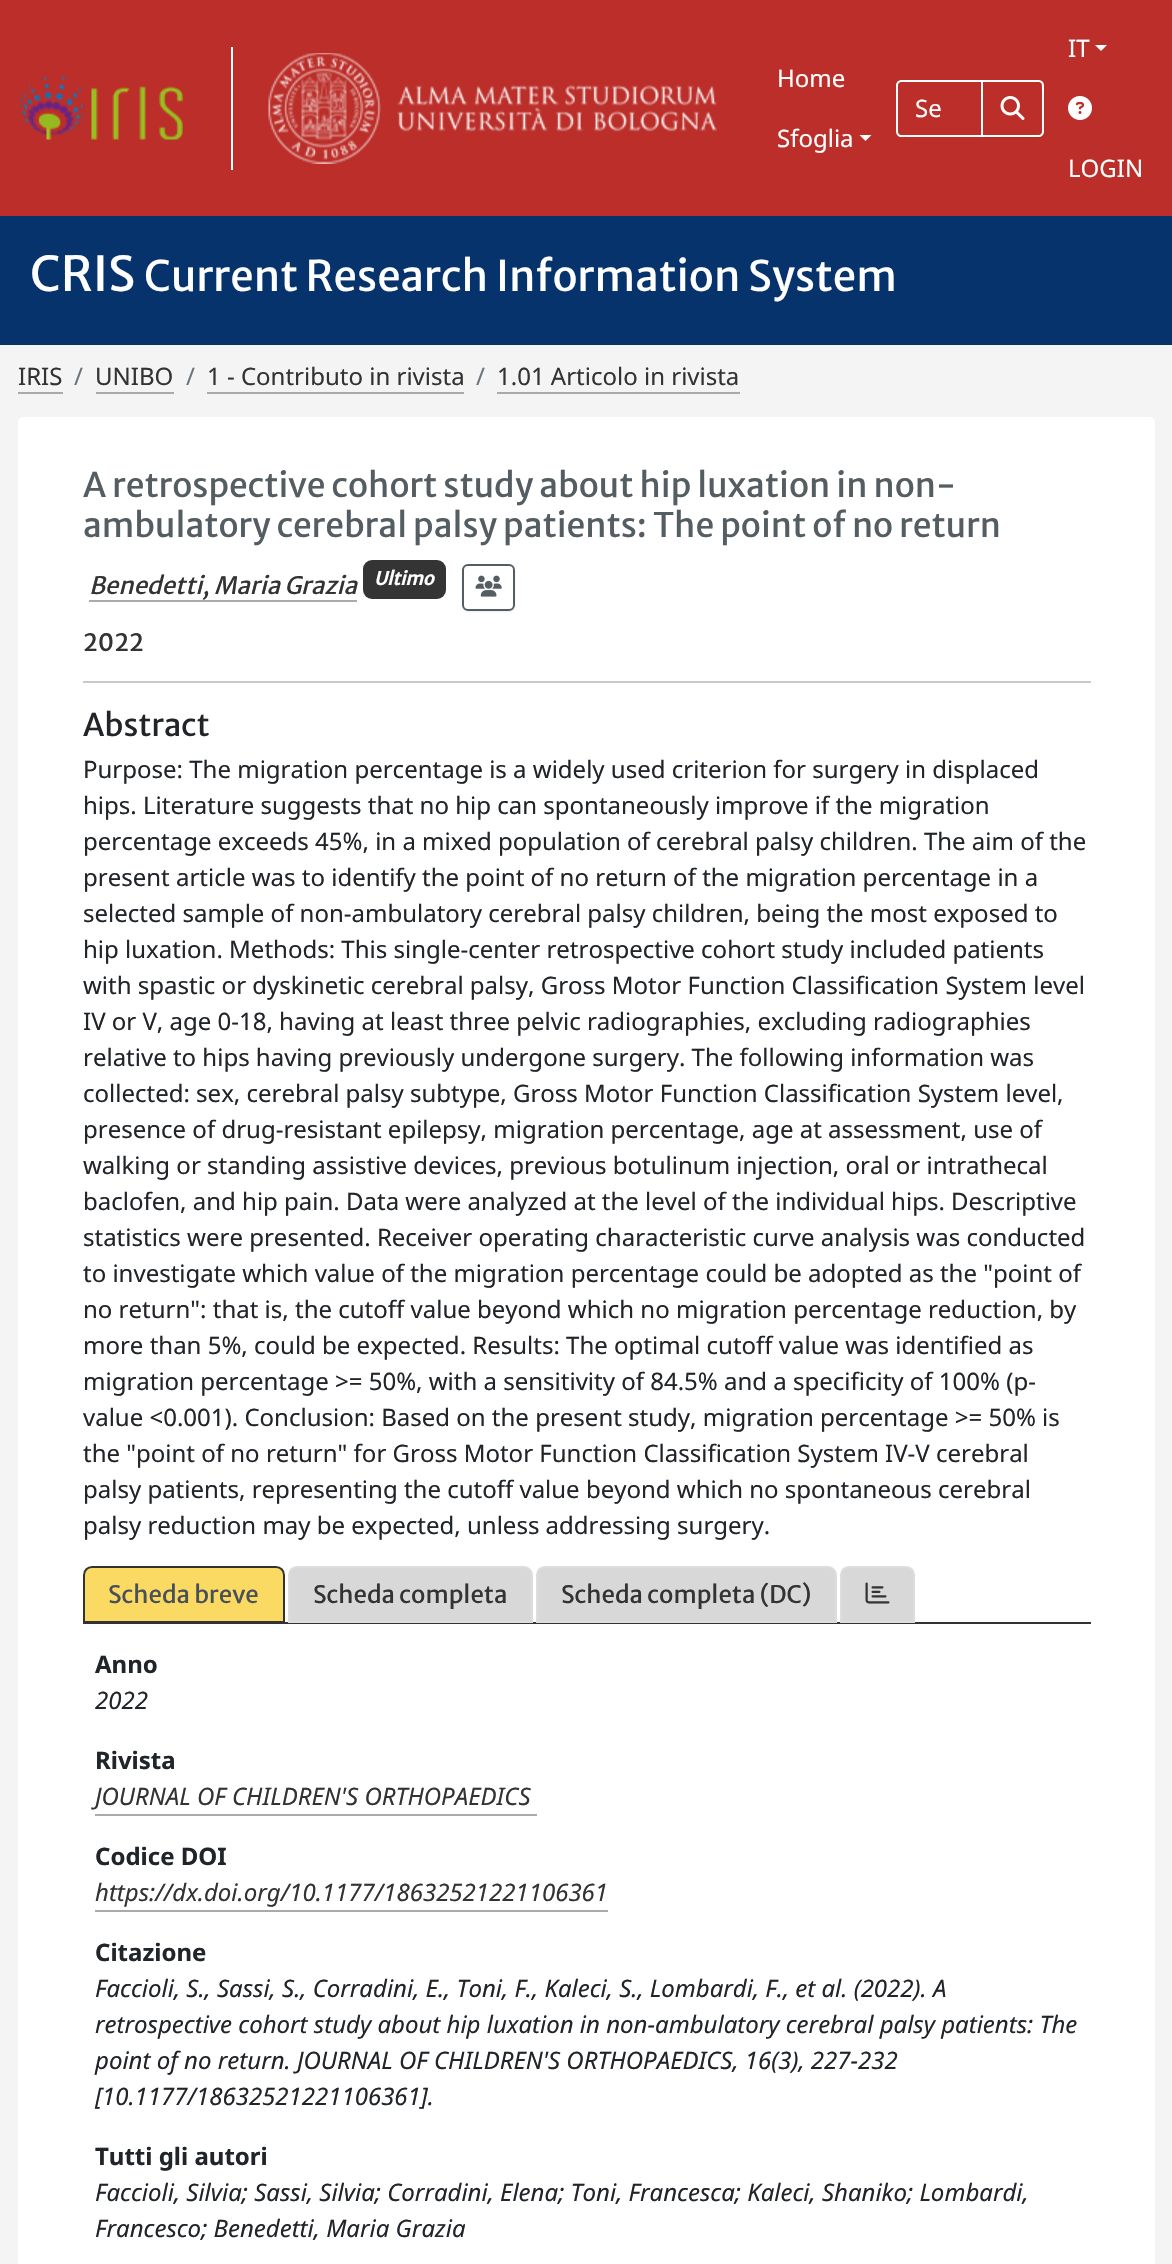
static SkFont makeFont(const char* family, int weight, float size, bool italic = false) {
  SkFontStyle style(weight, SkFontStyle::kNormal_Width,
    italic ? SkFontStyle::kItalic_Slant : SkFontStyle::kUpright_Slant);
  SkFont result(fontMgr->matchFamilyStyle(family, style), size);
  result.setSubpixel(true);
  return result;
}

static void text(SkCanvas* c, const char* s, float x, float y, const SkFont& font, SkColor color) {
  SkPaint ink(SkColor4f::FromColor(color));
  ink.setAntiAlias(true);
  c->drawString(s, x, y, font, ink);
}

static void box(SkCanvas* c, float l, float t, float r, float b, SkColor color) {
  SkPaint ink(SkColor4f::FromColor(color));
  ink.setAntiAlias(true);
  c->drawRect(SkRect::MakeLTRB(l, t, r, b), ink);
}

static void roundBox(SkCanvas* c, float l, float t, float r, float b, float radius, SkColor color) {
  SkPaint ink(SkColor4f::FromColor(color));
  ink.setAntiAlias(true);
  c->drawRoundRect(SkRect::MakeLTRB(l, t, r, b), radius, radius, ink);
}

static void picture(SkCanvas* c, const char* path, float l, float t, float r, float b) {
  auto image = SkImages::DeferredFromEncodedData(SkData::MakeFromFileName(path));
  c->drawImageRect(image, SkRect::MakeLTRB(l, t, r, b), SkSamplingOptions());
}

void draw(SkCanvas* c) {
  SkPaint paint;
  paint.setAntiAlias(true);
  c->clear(0xfff4f4f4);
  box(c, 0, 0, 1172, 216, 0xffbb2e29);
  picture(c, "img_01.png", 18, 76, 183, 140);
  box(c, 231, 47, 233, 170, 0xffffffff);
  picture(c, "img_02.png", 268, 53, 717, 164);
  SkFont face1 = makeFont("Noto Sans", 400, 24);
  text(c, "Home", 777, 87, face1, 0xffffffff);
  text(c, "Sfoglia", 777, 147, face1, 0xffffffff);
  paint.setColor(0xffffffff);
  c->drawPath(SkPathBuilder().moveTo(859.5f, 135).lineTo(871.5f, 135).lineTo(865.5f, 141).close().detach(), paint);
  paint.setStyle(SkPaint::kStroke_Style);
  paint.setStrokeWidth(2);
  c->drawPath(SkPathBuilder().moveTo(901, 81).lineTo(982, 81).lineTo(982, 136).lineTo(901, 136).cubicTo(899, 136, 897, 134, 897, 132).lineTo(897, 85).cubicTo(897, 83, 899, 81, 901, 81).close().detach(), paint);
  text(c, "Se", 915, 117, face1, 0xffffffff);
  paint.setStyle(SkPaint::kFill_Style);
  paint.setColor(0x12000000);
  paint.setMaskFilter(SkMaskFilter::MakeBlur(kNormal_SkBlurStyle, 1));
  c->drawRoundRect(SkRect::MakeLTRB(981, 81, 1044, 138), 5, 5, paint);
  paint.setMaskFilter(nullptr);
  paint.setColor(0xffbb2e29);
  c->drawPath(SkPathBuilder().moveTo(981, 80).lineTo(1039, 80).cubicTo(1042, 80, 1044, 82, 1044, 85).lineTo(1044, 132).cubicTo(1044, 135, 1042, 137, 1039, 137).lineTo(981, 137).close().detach(), paint);
  paint.setColor(0xffc54d49);
  c->drawPath(SkPathBuilder().moveTo(983, 81).lineTo(983, 82).lineTo(1040, 82).cubicTo(1043, 84, 1042, 100, 1042, 102).lineTo(1042, 134).cubicTo(1043, 134, 1043, 133, 1043, 132).lineTo(1043, 84).cubicTo(1043, 82, 1042, 81, 1040, 81).close().detach(), paint);
  paint.setStyle(SkPaint::kStroke_Style);
  paint.setColor(0xffffffff);
  c->drawPath(SkPathBuilder().moveTo(982, 81).lineTo(1039, 81).cubicTo(1041, 81, 1043, 83, 1043, 85).lineTo(1043, 132).cubicTo(1043, 134, 1041, 136, 1039, 136).lineTo(982, 136).close().detach(), paint);
  picture(c, "img_03.png", 1000, 96, 1025, 120);
  text(c, "IT", 1068, 57, face1, 0xffffffff);
  paint.setStyle(SkPaint::kFill_Style);
  c->drawPath(SkPathBuilder().moveTo(1095, 45).lineTo(1107, 45).lineTo(1101, 51).close().detach(), paint);
  picture(c, "img_04.png", 1068, 96, 1092, 120);
  text(c, "LOGIN", 1068, 177, face1, 0xffffffff);
  box(c, 0, 216, 1172, 345, 0xff06336b);
  SkFont face2 = makeFont("Merriweather Sans", 400, 48);
  text(c, "CRIS", 30, 291, face2, 0xffffffff);
  SkFont face3 = makeFont("Merriweather Sans", 400, 42);
  text(c, "Current Research Information System", 144, 291, face3, 0xffffffff);
  text(c, "IRIS", 18, 385, face1, 0xff333333);
  box(c, 18, 392, 63, 394, 0xffaaaaaa);
  text(c, "/", 74, 385, face1, 0xff6c757d);
  text(c, "UNIBO", 95, 385, face1, 0xff333333);
  box(c, 96, 392, 174, 394, 0xffaaaaaa);
  text(c, "/", 186, 385, face1, 0xff6c757d);
  text(c, "1 - Contributo in rivista", 207, 385, face1, 0xff333333);
  box(c, 207, 392, 464, 394, 0xffaaaaaa);
  text(c, "/", 476, 385, face1, 0xff6c757d);
  text(c, "1.01 Articolo in rivista", 497, 385, face1, 0xff333333);
  box(c, 497, 392, 740, 394, 0xffaaaaaa);
  roundBox(c, 18, 417, 1155, 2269, 5, 0xffffffff);
  SkFont face4 = makeFont("Merriweather Sans", 400, 33.6f);
  text(c, "A retrospective cohort study about hip luxation in non-", 83, 497, face4, 0xff545d62);
  text(c, "ambulatory cerebral palsy patients: The point of no return", 83, 537, face4, 0xff545d62);
  SkFont face5 = makeFont("Merriweather Sans", 400, 24, true);
  text(c, "Benedetti, Maria Grazia", 89, 594, face5, 0xff333333);
  box(c, 89, 600, 357, 602, 0xffaaaaaa);
  roundBox(c, 363, 560, 446, 599, 9, 0xff343434);
  SkFont face6 = makeFont("Merriweather Sans", 700, 18, true);
  text(c, "Ultimo", 374, 585, face6, 0xffffffff);
  c->save();
  c->clipPath(SkPathBuilder(SkPathFillType::kEvenOdd).moveTo(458, 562).lineTo(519, 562).lineTo(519, 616).lineTo(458, 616).close().moveTo(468, 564).lineTo(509, 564).cubicTo(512.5f, 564, 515, 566.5f, 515, 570).lineTo(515, 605).cubicTo(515, 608.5f, 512.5f, 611, 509, 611).lineTo(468, 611).cubicTo(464.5f, 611, 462, 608.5f, 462, 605).lineTo(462, 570).cubicTo(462, 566.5f, 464.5f, 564, 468, 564).close().detach(), true);
  paint.setColor(0x12000000);
  paint.setMaskFilter(SkMaskFilter::MakeBlur(kNormal_SkBlurStyle, 1));
  c->drawRoundRect(SkRect::MakeLTRB(462, 566, 515, 612), 6, 6, paint);
  paint.setMaskFilter(nullptr);
  c->restore();
  paint.setStyle(SkPaint::kStroke_Style);
  paint.setColor(0xff545d62);
  c->drawRoundRect(SkRect::MakeLTRB(463, 565, 514, 610), 5, 5, paint);
  picture(c, "img_05.png", 475, 575, 502, 597);
  SkFont face7 = makeFont("Merriweather Sans", 400, 24);
  text(c, "2022", 83, 651, face7, 0xff333333);
  box(c, 83, 681, 1091, 683, 0xffc8c9ca);
  SkFont face8 = makeFont("Merriweather Sans", 400, 31);
  text(c, "Abstract", 83, 736, face8, 0xff212529);
  text(c, "Purpose: The migration percentage is a widely used criterion for surgery in displaced", 83, 778, face1, 0xff212529);
  text(c, "hips. Literature suggests that no hip can spontaneously improve if the migration", 83, 814, face1, 0xff212529);
  text(c, "percentage exceeds 45%, in a mixed population of cerebral palsy children. The aim of the", 83, 850, face1, 0xff212529);
  text(c, "present article was to identify the point of no return of the migration percentage in a", 83, 886, face1, 0xff212529);
  text(c, "selected sample of non-ambulatory cerebral palsy children, being the most exposed to", 83, 922, face1, 0xff212529);
  text(c, "hip luxation. Methods: This single-center retrospective cohort study included patients", 83, 958, face1, 0xff212529);
  text(c, "with spastic or dyskinetic cerebral palsy, Gross Motor Function Classification System level", 83, 994, face1, 0xff212529);
  text(c, "IV or V, age 0-18, having at least three pelvic radiographies, excluding radiographies", 83, 1030, face1, 0xff212529);
  text(c, "relative to hips having previously undergone surgery. The following information was", 83, 1066, face1, 0xff212529);
  text(c, "collected: sex, cerebral palsy subtype, Gross Motor Function Classification System level,", 83, 1102, face1, 0xff212529);
  text(c, "presence of drug-resistant epilepsy, migration percentage, age at assessment, use of", 83, 1138, face1, 0xff212529);
  text(c, "walking or standing assistive devices, previous botulinum injection, oral or intrathecal", 83, 1174, face1, 0xff212529);
  text(c, "baclofen, and hip pain. Data were analyzed at the level of the individual hips. Descriptive", 83, 1210, face1, 0xff212529);
  text(c, "statistics were presented. Receiver operating characteristic curve analysis was conducted", 83, 1246, face1, 0xff212529);
  text(c, "to investigate which value of the migration percentage could be adopted as the \"point of", 83, 1282, face1, 0xff212529);
  text(c, "no return\": that is, the cutoff value beyond which no migration percentage reduction, by", 83, 1318, face1, 0xff212529);
  text(c, "more than 5%, could be expected. Results: The optimal cutoff value was identified as", 83, 1354, face1, 0xff212529);
  text(c, "migration percentage >= 50%, with a sensitivity of 84.5% and a specificity of 100% (p-", 83, 1390, face1, 0xff212529);
  text(c, "value <0.001). Conclusion: Based on the present study, migration percentage >= 50% is", 83, 1426, face1, 0xff212529);
  text(c, "the \"point of no return\" for Gross Motor Function Classification System IV-V cerebral", 83, 1462, face1, 0xff212529);
  text(c, "palsy patients, representing the cutoff value beyond which no spontaneous cerebral", 83, 1498, face1, 0xff212529);
  text(c, "palsy reduction may be expected, unless addressing surgery.", 83, 1534, face1, 0xff212529);
  box(c, 83, 1622, 1091, 1624, 0xff333333);
  paint.setStyle(SkPaint::kFill_Style);
  paint.setColor(0xfffbda64);
  c->drawPath(SkPathBuilder().moveTo(92, 1567).lineTo(276, 1567).cubicTo(280.5f, 1567, 284, 1570.5f, 284, 1575).lineTo(284, 1622).lineTo(84, 1622).lineTo(84, 1575).cubicTo(84, 1570.5f, 87.5f, 1567, 92, 1567).close().detach(), paint);
  paint.setStyle(SkPaint::kStroke_Style);
  paint.setColor(0xff333333);
  c->drawPath(SkPathBuilder().moveTo(92, 1567).lineTo(276, 1567).cubicTo(280.5f, 1567, 284, 1570.5f, 284, 1575).lineTo(284, 1622).lineTo(84, 1622).lineTo(84, 1575).cubicTo(84, 1570.5f, 87.5f, 1567, 92, 1567).close().detach(), paint);
  text(c, "Scheda breve", 108, 1603, face7, 0xff495057);
  paint.setStyle(SkPaint::kFill_Style);
  paint.setColor(0xffd8d8d8);
  c->drawPath(SkPathBuilder().moveTo(297, 1567).lineTo(524, 1567).cubicTo(528.5f, 1567, 532, 1570.5f, 532, 1575).lineTo(532, 1622).lineTo(289, 1622).lineTo(289, 1575).cubicTo(289, 1570.5f, 292.5f, 1567, 297, 1567).close().detach(), paint);
  paint.setStyle(SkPaint::kStroke_Style);
  paint.setColor(0xffdddddd);
  c->drawPath(SkPathBuilder().moveTo(297, 1567).lineTo(524, 1567).cubicTo(528.5f, 1567, 532, 1570.5f, 532, 1575).lineTo(532, 1622).lineTo(289, 1622).lineTo(289, 1575).cubicTo(289, 1570.5f, 292.5f, 1567, 297, 1567).close().detach(), paint);
  text(c, "Scheda completa", 313, 1603, face7, 0xff333333);
  paint.setStyle(SkPaint::kFill_Style);
  paint.setColor(0xffd8d8d8);
  c->drawPath(SkPathBuilder().moveTo(545, 1567).lineTo(828, 1567).cubicTo(832.5f, 1567, 836, 1570.5f, 836, 1575).lineTo(836, 1622).lineTo(537, 1622).lineTo(537, 1575).cubicTo(537, 1570.5f, 540.5f, 1567, 545, 1567).close().detach(), paint);
  paint.setStyle(SkPaint::kStroke_Style);
  paint.setColor(0xffdddddd);
  c->drawPath(SkPathBuilder().moveTo(545, 1567).lineTo(828, 1567).cubicTo(832.5f, 1567, 836, 1570.5f, 836, 1575).lineTo(836, 1622).lineTo(537, 1622).lineTo(537, 1575).cubicTo(537, 1570.5f, 540.5f, 1567, 545, 1567).close().detach(), paint);
  text(c, "Scheda completa (DC)", 561, 1603, face7, 0xff333333);
  paint.setStyle(SkPaint::kFill_Style);
  paint.setColor(0xffd8d8d8);
  c->drawPath(SkPathBuilder().moveTo(849, 1567).lineTo(906, 1567).cubicTo(910.5f, 1567, 914, 1570.5f, 914, 1575).lineTo(914, 1622).lineTo(841, 1622).lineTo(841, 1575).cubicTo(841, 1570.5f, 844.5f, 1567, 849, 1567).close().detach(), paint);
  paint.setStyle(SkPaint::kStroke_Style);
  paint.setColor(0xffdddddd);
  c->drawPath(SkPathBuilder().moveTo(849, 1567).lineTo(906, 1567).cubicTo(910.5f, 1567, 914, 1570.5f, 914, 1575).lineTo(914, 1622).lineTo(841, 1622).lineTo(841, 1575).cubicTo(841, 1570.5f, 844.5f, 1567, 849, 1567).close().detach(), paint);
  picture(c, "img_06.png", 865, 1582, 890, 1604);
  SkFont face9 = makeFont("Noto Sans", 700, 24);
  text(c, "Anno", 95, 1673, face9, 0xff212529);
  SkFont face10 = makeFont("Noto Sans", 400, 24, true);
  text(c, "2022", 95, 1709, face10, 0xff212529);
  text(c, "Rivista", 95, 1769, face9, 0xff212529);
  text(c, "JOURNAL OF CHILDREN'S ORTHOPAEDICS", 95, 1805, face10, 0xff333333);
  box(c, 95, 1814, 537, 1816, 0xffaaaaaa);
  text(c, "Codice DOI", 95, 1865, face9, 0xff212529);
  text(c, "https://dx.doi.org/10.1177/18632521221106361", 95, 1901, face10, 0xff333333);
  box(c, 95, 1910, 608, 1912, 0xffaaaaaa);
  text(c, "Citazione", 95, 1961, face9, 0xff212529);
  text(c, "Faccioli, S., Sassi, S., Corradini, E., Toni, F., Kaleci, S., Lombardi, F., et al. (2022). A", 95, 1997, face10, 0xff212529);
  text(c, "retrospective cohort study about hip luxation in non-ambulatory cerebral palsy patients: The", 95, 2033, face10, 0xff212529);
  text(c, "point of no return. JOURNAL OF CHILDREN'S ORTHOPAEDICS, 16(3), 227-232", 95, 2069, face10, 0xff212529);
  text(c, "[10.1177/18632521221106361].", 95, 2105, face10, 0xff212529);
  text(c, "Tutti gli autori", 95, 2165, face9, 0xff212529);
  text(c, "Faccioli, Silvia; Sassi, Silvia; Corradini, Elena; Toni, Francesca; Kaleci, Shaniko; Lombardi,", 95, 2201, face10, 0xff212529);
  text(c, "Francesco; Benedetti, Maria Grazia", 95, 2237, face10, 0xff212529);
}
